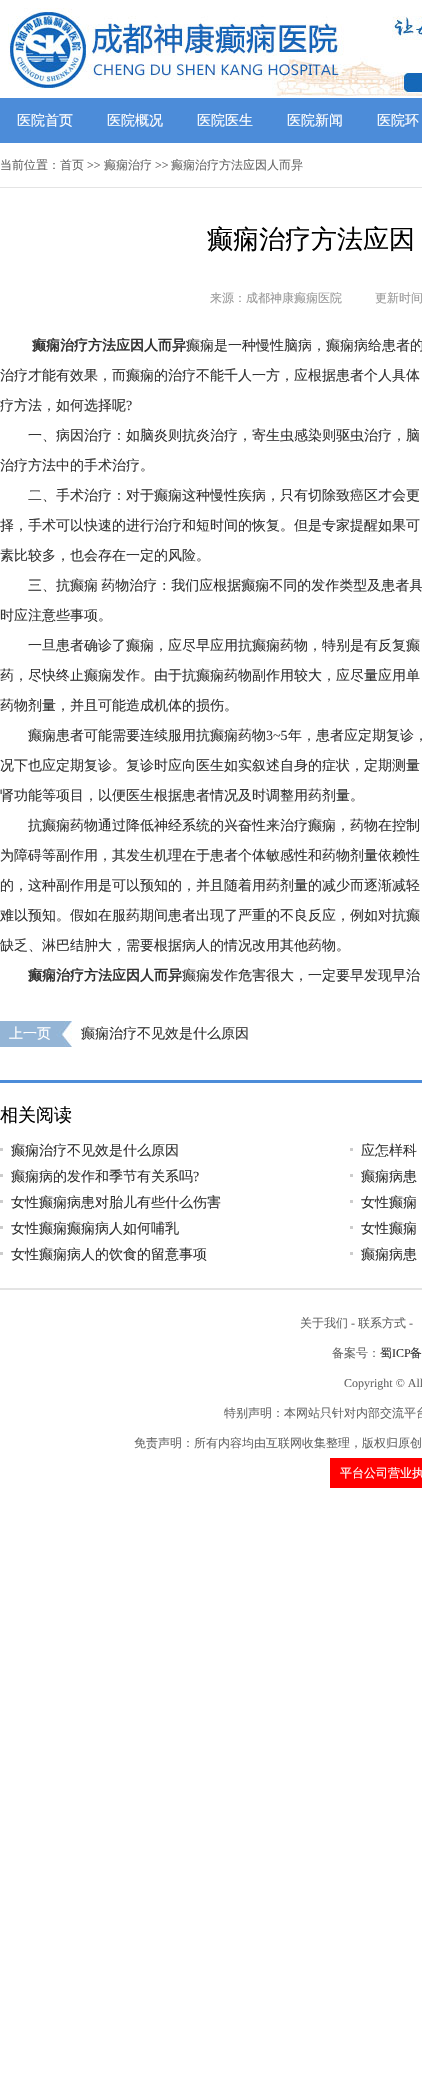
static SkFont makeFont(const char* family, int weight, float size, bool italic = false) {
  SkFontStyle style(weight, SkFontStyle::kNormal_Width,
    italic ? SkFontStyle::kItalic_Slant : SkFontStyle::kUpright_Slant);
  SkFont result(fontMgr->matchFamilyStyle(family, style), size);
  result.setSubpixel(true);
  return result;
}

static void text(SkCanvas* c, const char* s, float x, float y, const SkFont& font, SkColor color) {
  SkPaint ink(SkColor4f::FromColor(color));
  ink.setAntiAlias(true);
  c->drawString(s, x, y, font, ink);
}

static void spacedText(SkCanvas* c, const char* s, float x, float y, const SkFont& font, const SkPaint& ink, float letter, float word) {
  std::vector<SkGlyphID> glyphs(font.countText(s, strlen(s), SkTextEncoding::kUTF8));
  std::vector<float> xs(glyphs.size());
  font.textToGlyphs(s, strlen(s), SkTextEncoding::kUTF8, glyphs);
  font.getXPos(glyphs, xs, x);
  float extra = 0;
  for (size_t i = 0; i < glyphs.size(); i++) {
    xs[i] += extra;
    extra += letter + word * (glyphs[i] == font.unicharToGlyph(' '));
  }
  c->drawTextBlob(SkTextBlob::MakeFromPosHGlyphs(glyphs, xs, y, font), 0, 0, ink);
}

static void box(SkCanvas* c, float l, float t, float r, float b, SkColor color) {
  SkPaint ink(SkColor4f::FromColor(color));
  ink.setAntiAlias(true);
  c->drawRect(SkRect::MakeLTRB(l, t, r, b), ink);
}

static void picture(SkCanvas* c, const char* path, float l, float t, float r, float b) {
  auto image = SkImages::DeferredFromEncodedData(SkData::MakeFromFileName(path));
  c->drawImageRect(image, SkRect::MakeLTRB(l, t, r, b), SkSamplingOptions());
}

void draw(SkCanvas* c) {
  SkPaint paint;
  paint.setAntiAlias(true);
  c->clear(0xffffffff);
  picture(c, "img_01.png", 8, 8, 422, 96);
  box(c, 0, 98, 422, 143, 0xff4c8cd9);
  SkFont face1 = makeFont("WenQuanYi Zen Hei", 500, 14);
  text(c, "医院首页", 17, 125, face1, 0xffffffff);
  text(c, "医院概况", 107, 125, face1, 0xffffffff);
  text(c, "医院医生", 197, 125, face1, 0xffffffff);
  text(c, "医院新闻", 287, 125, face1, 0xffffffff);
  text(c, "医院环", 377, 125, face1, 0xffffffff);
  box(c, 0, 187, 422, 188, 0xffe4e4e4);
  SkFont face2 = makeFont("WenQuanYi Zen Hei", 500, 12);
  text(c, "当前位置：首页", 0, 169, face2, 0xff666666);
  SkFont face3 = makeFont("Liberation Serif", 400, 12);
  text(c, ">>", 87, 169, face3, 0xff666666);
  text(c, "癫痫治疗", 104, 169, face2, 0xff666666);
  text(c, ">>", 155, 169, face3, 0xff666666);
  text(c, "癫痫治疗方法应因人而异", 171, 169, face2, 0xff666666);
  box(c, 0, 1080, 422, 1083, 0xff4c8cd9);
  SkFont face4 = makeFont("WenQuanYi Zen Hei", 500, 26);
  text(c, "癫痫治疗方法应因", 207, 248, face4, 0xff000000);
  text(c, "来源：成都神康癫痫医院", 210, 302, face2, 0xff999999);
  text(c, "更新时间", 375, 302, face2, 0xff999999);
  SkFont face5 = makeFont("WenQuanYi Zen Hei", 700, 14);
  text(c, "癫痫治疗方法应因人而异", 32, 350, face5, 0xff333333);
  text(c, "癫痫是一种慢性脑病，癫痫病给患者的", 186, 350, face1, 0xff333333);
  text(c, "治疗才能有效果，而癫痫的治疗不能千人一方，应根据患者个人具体", 0, 380, face1, 0xff333333);
  text(c, "疗方法，如何选择呢", 0, 410, face1, 0xff333333);
  SkFont face6 = makeFont("Liberation Serif", 400, 14);
  text(c, "?", 126, 410, face6, 0xff333333);
  text(c, "一、病因治疗：如脑炎则抗炎治疗，寄生虫感染则驱虫治疗，脑", 28, 440, face1, 0xff333333);
  text(c, "治疗方法中的手术治疗。", 0, 470, face1, 0xff333333);
  text(c, "二、手术治疗：对于癫痫这种慢性疾病，只有切除致癌区才会更", 28, 500, face1, 0xff333333);
  text(c, "择，手术可以快速的进行治疗和短时间的恢复。但是专家提醒如果可", 0, 530, face1, 0xff333333);
  text(c, "素比较多，也会存在一定的风险。", 0, 560, face1, 0xff333333);
  paint.setColor(0xff333333);
  spacedText(c, "三、抗癫痫 药物治疗：我们应根据癫痫不同的发作类型及患者具", 28, 590, face1, paint, 0, -1);
  text(c, "时应注意些事项。", 0, 620, face1, 0xff333333);
  text(c, "一旦患者确诊了癫痫，应尽早应用抗癫痫药物，特别是有反复癫", 28, 650, face1, 0xff333333);
  text(c, "药，尽快终止癫痫发作。由于抗癫痫药物副作用较大，应尽量应用单", 0, 680, face1, 0xff333333);
  text(c, "药物剂量，并且可能造成机体的损伤。", 0, 710, face1, 0xff333333);
  text(c, "癫痫患者可能需要连续服用抗癫痫药物", 28, 740, face1, 0xff333333);
  text(c, "3~5", 266, 740, face6, 0xff333333);
  text(c, "年，患者应定期复诊，", 288, 740, face1, 0xff333333);
  text(c, "况下也应定期复诊。复诊时应向医生如实叙述自身的症状，定期测量", 0, 770, face1, 0xff333333);
  text(c, "肾功能等项目，以便医生根据患者情况及时调整用药剂量。", 0, 800, face1, 0xff333333);
  text(c, "抗癫痫药物通过降低神经系统的兴奋性来治疗癫痫，药物在控制", 28, 830, face1, 0xff333333);
  text(c, "为障碍等副作用，其发生机理在于患者个体敏感性和药物剂量依赖性", 0, 860, face1, 0xff333333);
  text(c, "的，这种副作用是可以预知的，并且随着用药剂量的减少而逐渐减轻", 0, 890, face1, 0xff333333);
  text(c, "难以预知。假如在服药期间患者出现了严重的不良反应，例如对抗癫", 0, 920, face1, 0xff333333);
  text(c, "缺乏、淋巴结肿大，需要根据病人的情况改用其他药物。", 0, 950, face1, 0xff333333);
  text(c, "癫痫治疗方法应因人而异", 28, 980, face5, 0xff333333);
  text(c, "癫痫发作危害很大，一定要早发现早治", 182, 980, face1, 0xff333333);
  picture(c, "img_02.png", 0, 1021, 72, 1047);
  text(c, "上一页", 9, 1038, face1, 0xffffffff);
  text(c, "癫痫治疗不见效是什么原因", 81, 1038, face1, 0xff333333);
  SkFont face7 = makeFont("WenQuanYi Zen Hei", 500, 18);
  text(c, "相关阅读", 0, 1121, face7, 0xff000000);
  box(c, 0, 1148, 3, 1151, 0xffcccccc);
  text(c, "癫痫治疗不见效是什么原因", 11, 1155, face1, 0xff333333);
  box(c, 350, 1148, 353, 1151, 0xffcccccc);
  text(c, "应怎样科", 361, 1155, face1, 0xff333333);
  box(c, 0, 1174, 3, 1177, 0xffcccccc);
  text(c, "癫痫病的发作和季节有关系吗", 11, 1181, face1, 0xff333333);
  text(c, "?", 193, 1181, face6, 0xff333333);
  box(c, 350, 1174, 353, 1177, 0xffcccccc);
  text(c, "癫痫病患", 361, 1181, face1, 0xff333333);
  box(c, 0, 1200, 3, 1203, 0xffcccccc);
  text(c, "女性癫痫病患对胎儿有些什么伤害", 11, 1207, face1, 0xff333333);
  box(c, 350, 1200, 353, 1203, 0xffcccccc);
  text(c, "女性癫痫", 361, 1207, face1, 0xff333333);
  box(c, 0, 1226, 3, 1229, 0xffcccccc);
  text(c, "女性癫痫癫痫病人如何哺乳", 11, 1233, face1, 0xff333333);
  box(c, 350, 1226, 353, 1229, 0xffcccccc);
  text(c, "女性癫痫", 361, 1233, face1, 0xff333333);
  box(c, 0, 1252, 3, 1255, 0xffcccccc);
  text(c, "女性癫痫病人的饮食的留意事项", 11, 1259, face1, 0xff333333);
  box(c, 350, 1252, 353, 1255, 0xffcccccc);
  text(c, "癫痫病患", 361, 1259, face1, 0xff333333);
  box(c, 0, 1288, 422, 1290, 0xffe4e4e4);
  text(c, "关于我们", 300, 1327, face2, 0xff666666);
  text(c, "-", 351, 1327, face3, 0xff666666);
  text(c, "联系方式", 358, 1327, face2, 0xff666666);
  text(c, "-", 409, 1327, face3, 0xff666666);
  text(c, "备案号：", 332, 1357, face2, 0xff666666);
  text(c, "蜀", 380, 1357, face2, 0xff333333);
  text(c, "ICP", 392, 1357, face3, 0xff333333);
  text(c, "备", 410, 1357, face2, 0xff333333);
  text(c, "Copyright © All", 344, 1387, face3, 0xff666666);
  text(c, "特别声明：本网站只针对内部交流平台", 224, 1417, face2, 0xff666666);
  text(c, "免责声明：所有内容均由互联网收集整理，版权归原创", 134, 1447, face2, 0xff666666);
  box(c, 330, 1458, 422, 1488, 0xffff0000);
  text(c, "平台公司营业执", 340, 1477, face2, 0xffffffff);
}
